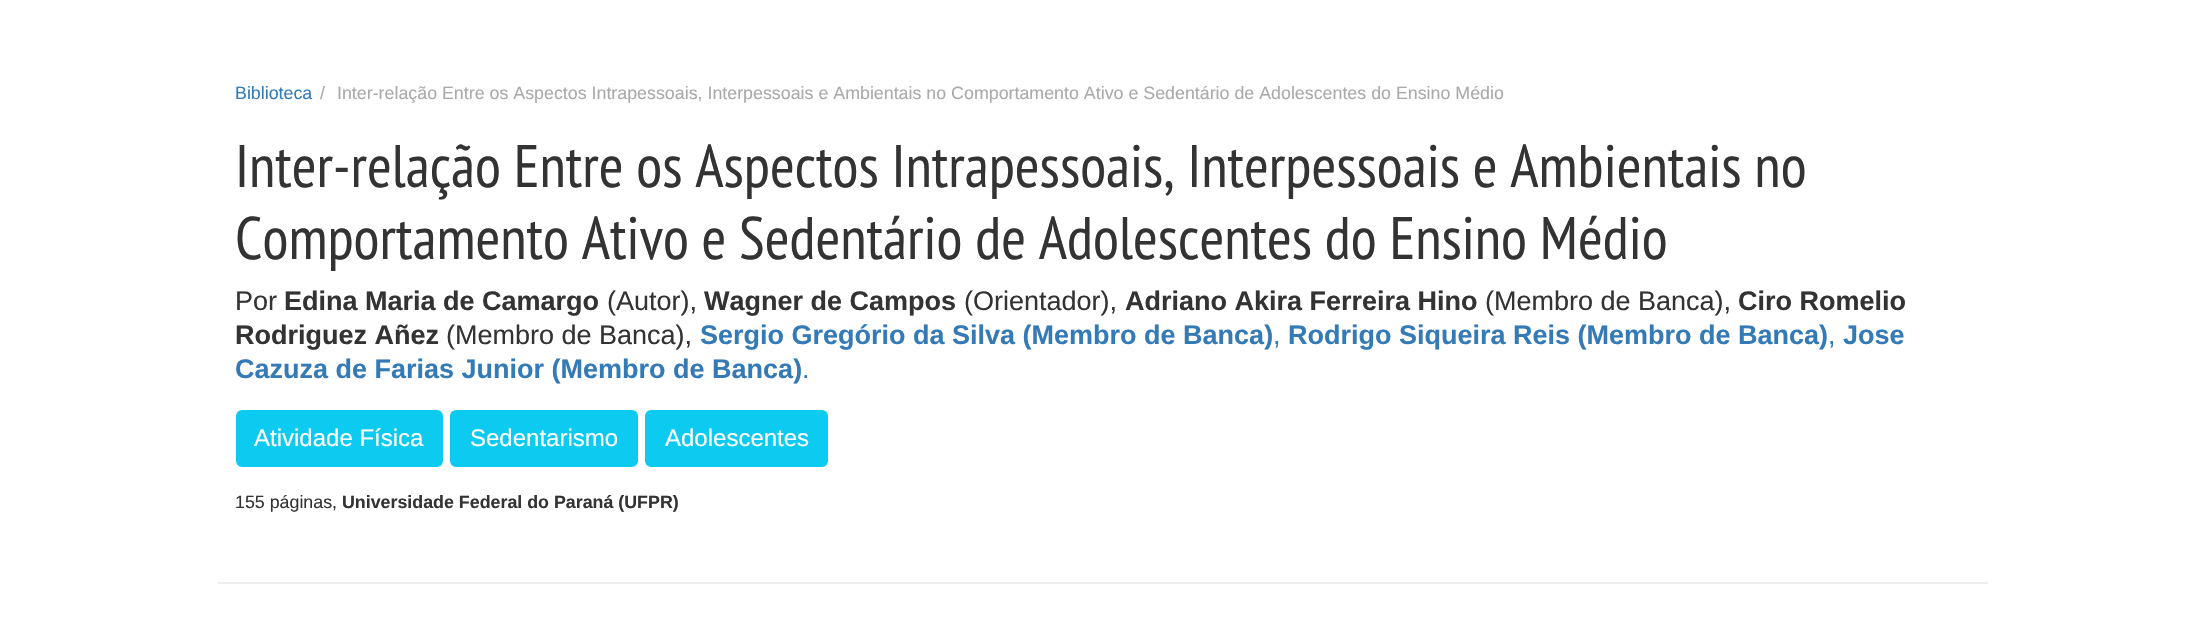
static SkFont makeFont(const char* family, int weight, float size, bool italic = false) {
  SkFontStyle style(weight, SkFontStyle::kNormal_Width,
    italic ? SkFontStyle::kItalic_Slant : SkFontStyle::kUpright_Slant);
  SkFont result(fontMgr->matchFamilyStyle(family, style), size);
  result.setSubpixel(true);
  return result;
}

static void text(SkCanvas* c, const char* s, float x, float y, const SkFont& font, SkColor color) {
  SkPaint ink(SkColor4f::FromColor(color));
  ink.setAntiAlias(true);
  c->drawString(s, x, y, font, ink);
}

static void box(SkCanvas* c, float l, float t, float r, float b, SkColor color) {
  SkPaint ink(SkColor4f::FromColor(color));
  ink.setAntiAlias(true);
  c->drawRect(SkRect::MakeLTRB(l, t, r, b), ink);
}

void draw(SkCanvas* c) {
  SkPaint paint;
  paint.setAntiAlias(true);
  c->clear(0xffffffff);
  box(c, 218, 582, 1988, 584, 0xffeeeeee);
  SkFont face1 = makeFont("Liberation Sans", 400, 17.82f);
  text(c, "Biblioteca", 235, 99, face1, 0xff337ab7);
  text(c, "/", 320, 99, face1, 0xffaaaaaa);
  text(c, "Inter-relação Entre os Aspectos Intrapessoais, Interpessoais e Ambientais no Comportamento Ativo e Sedentário de Adolescentes do Ensino Médio", 337, 99, face1, 0xffaaaaaa);
  SkFont face2 = makeFont("PT Sans Narrow", 400, 60);
  text(c, "Inter-relação Entre os Aspectos Intrapessoais, Interpessoais e Ambientais no", 235, 187, face2, 0xff333333);
  text(c, "Comportamento Ativo e Sedentário de Adolescentes do Ensino Médio", 235, 259, face2, 0xff333333);
  SkFont face3 = makeFont("Liberation Sans", 400, 27);
  text(c, "Por", 235, 310, face3, 0xff333333);
  SkFont face4 = makeFont("Liberation Sans", 700, 27);
  text(c, "Edina Maria de Camargo", 284, 310, face4, 0xff333333);
  text(c, "(Autor),", 607, 310, face3, 0xff333333);
  text(c, "Wagner de Campos", 704, 310, face4, 0xff333333);
  text(c, "(Orientador),", 964, 310, face3, 0xff333333);
  text(c, "Adriano Akira Ferreira Hino", 1125, 310, face4, 0xff333333);
  text(c, "(Membro de Banca),", 1485, 310, face3, 0xff333333);
  text(c, "Ciro Romelio", 1738, 310, face4, 0xff333333);
  text(c, "Rodriguez Añez", 235, 344, face4, 0xff333333);
  text(c, "(Membro de Banca),", 446, 344, face3, 0xff333333);
  text(c, "Sergio Gregório da Silva (Membro de Banca)", 700, 344, face4, 0xff337ab7);
  text(c, ",", 1273, 344, face3, 0xff337ab7);
  text(c, "Rodrigo Siqueira Reis (Membro de Banca)", 1288, 344, face4, 0xff337ab7);
  text(c, ",", 1828, 344, face3, 0xff337ab7);
  text(c, "Jose", 1843, 344, face4, 0xff337ab7);
  text(c, "Cazuza de Farias Junior (Membro de Banca)", 235, 378, face4, 0xff337ab7);
  text(c, ".", 802, 378, face3, 0xff337ab7);
  paint.setColor(0xff0dcaf0);
  c->drawRoundRect(SkRect::MakeLTRB(237, 411, 442, 466), 5, 5, paint);
  paint.setStyle(SkPaint::kStroke_Style);
  paint.setStrokeWidth(2);
  c->drawRoundRect(SkRect::MakeLTRB(237, 411, 442, 466), 5, 5, paint);
  SkFont face5 = makeFont("Liberation Sans", 400, 24);
  text(c, "Atividade Física", 254, 446, face5, 0xffffffff);
  paint.setStyle(SkPaint::kFill_Style);
  c->drawRoundRect(SkRect::MakeLTRB(451, 411, 637, 466), 5, 5, paint);
  paint.setStyle(SkPaint::kStroke_Style);
  c->drawRoundRect(SkRect::MakeLTRB(451, 411, 637, 466), 5, 5, paint);
  text(c, "Sedentarismo", 470, 446, face5, 0xffffffff);
  paint.setStyle(SkPaint::kFill_Style);
  c->drawRoundRect(SkRect::MakeLTRB(646, 411, 827, 466), 5, 5, paint);
  paint.setStyle(SkPaint::kStroke_Style);
  c->drawRoundRect(SkRect::MakeLTRB(646, 411, 827, 466), 5, 5, paint);
  text(c, "Adolescentes", 665, 446, face5, 0xffffffff);
  text(c, "155 páginas,", 235, 508, face1, 0xff333333);
  SkFont face6 = makeFont("Liberation Sans", 700, 17.82f);
  text(c, "Universidade Federal do Paraná (UFPR)", 342, 508, face6, 0xff333333);
}
